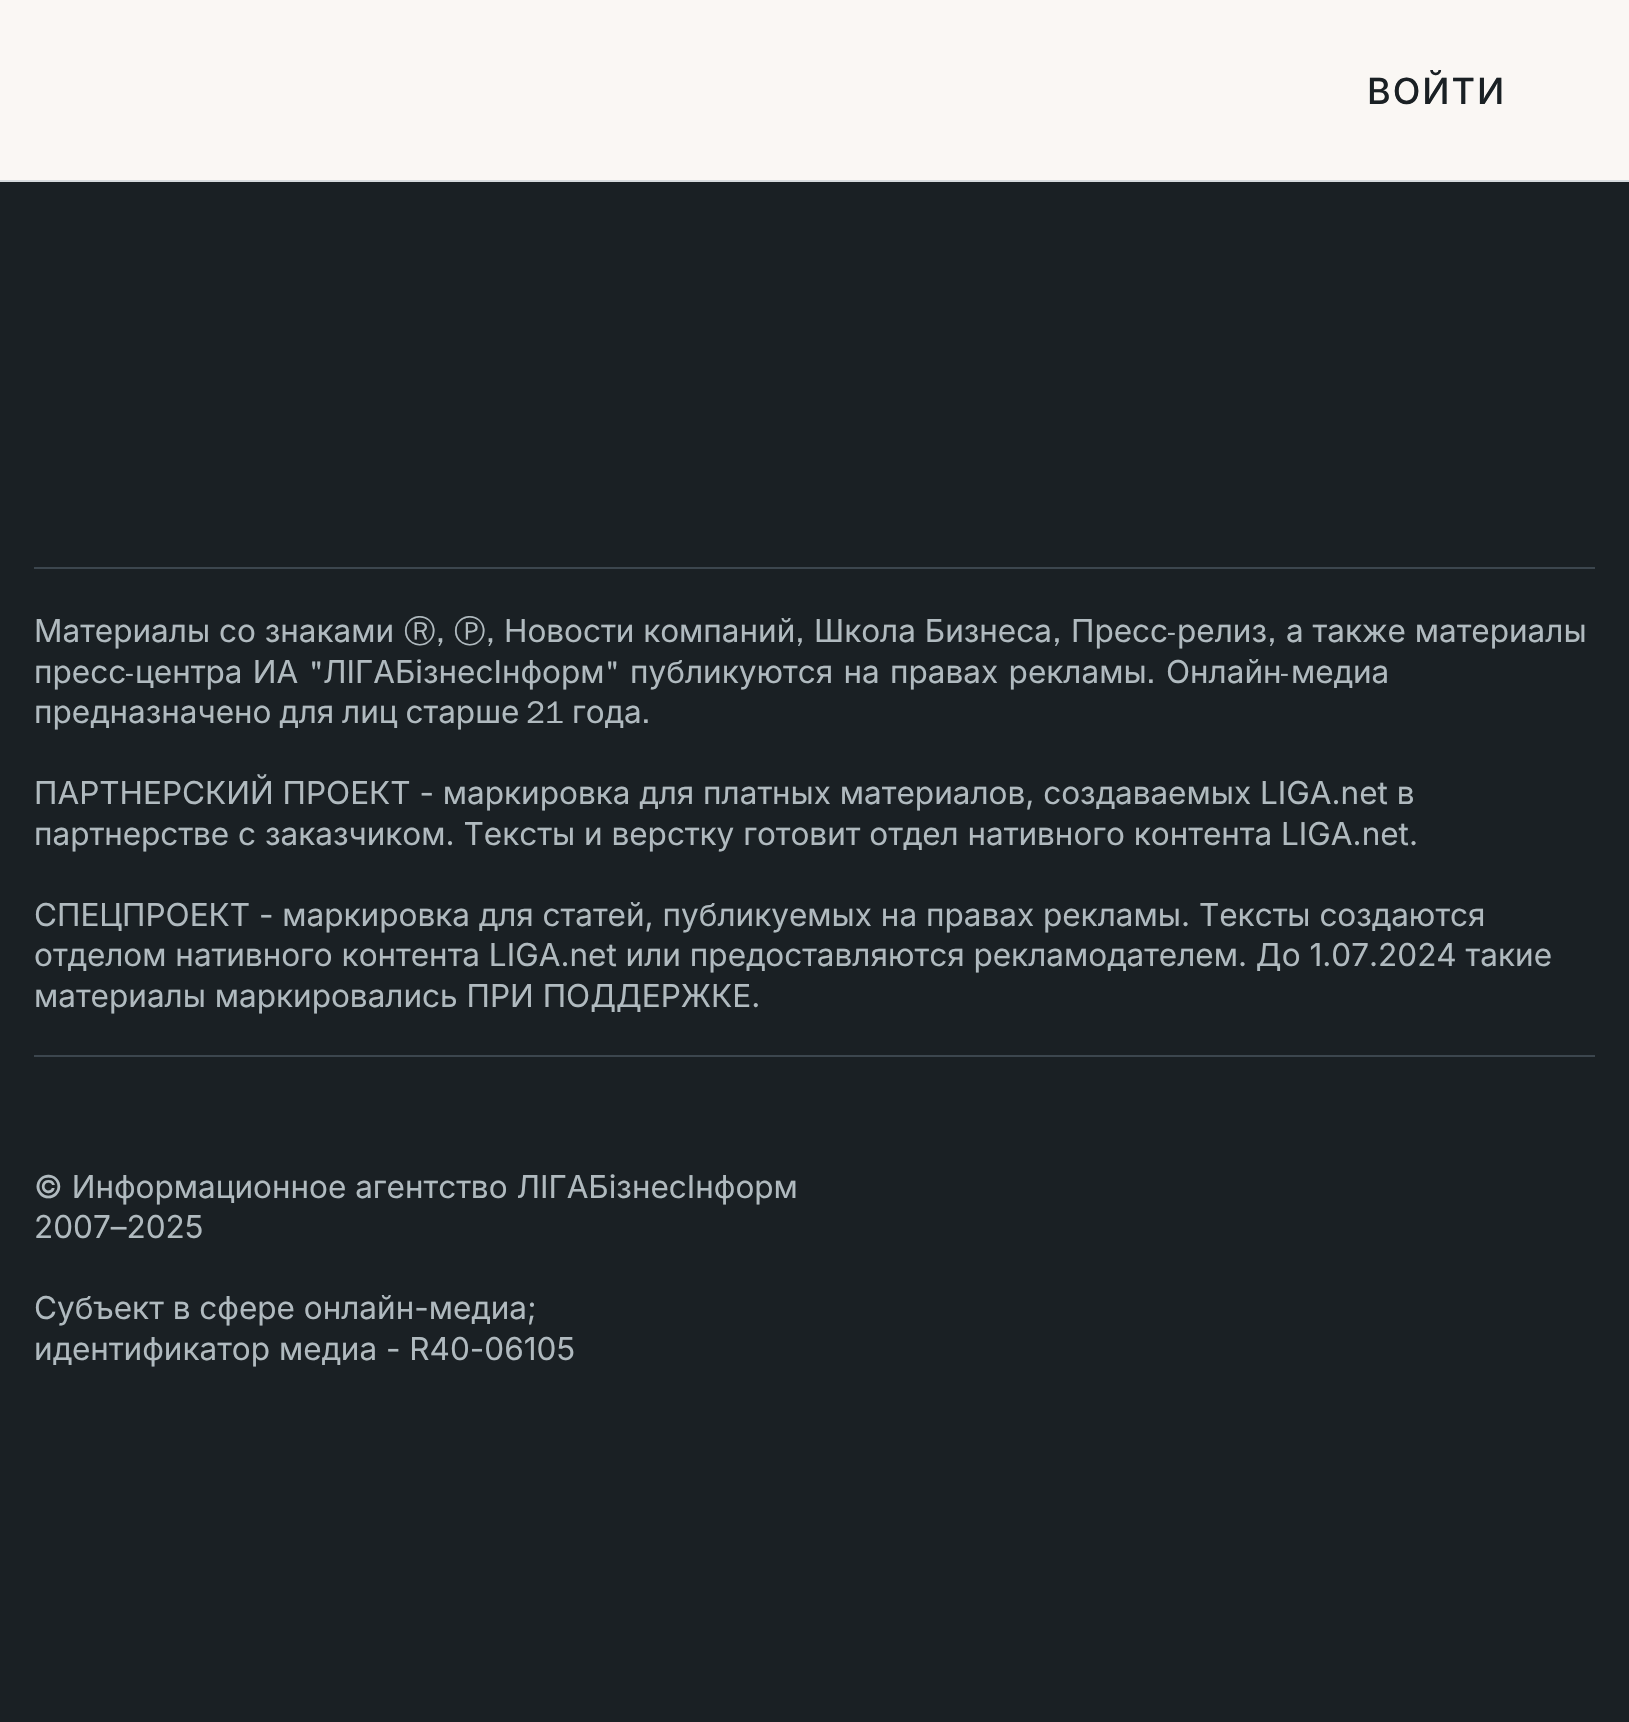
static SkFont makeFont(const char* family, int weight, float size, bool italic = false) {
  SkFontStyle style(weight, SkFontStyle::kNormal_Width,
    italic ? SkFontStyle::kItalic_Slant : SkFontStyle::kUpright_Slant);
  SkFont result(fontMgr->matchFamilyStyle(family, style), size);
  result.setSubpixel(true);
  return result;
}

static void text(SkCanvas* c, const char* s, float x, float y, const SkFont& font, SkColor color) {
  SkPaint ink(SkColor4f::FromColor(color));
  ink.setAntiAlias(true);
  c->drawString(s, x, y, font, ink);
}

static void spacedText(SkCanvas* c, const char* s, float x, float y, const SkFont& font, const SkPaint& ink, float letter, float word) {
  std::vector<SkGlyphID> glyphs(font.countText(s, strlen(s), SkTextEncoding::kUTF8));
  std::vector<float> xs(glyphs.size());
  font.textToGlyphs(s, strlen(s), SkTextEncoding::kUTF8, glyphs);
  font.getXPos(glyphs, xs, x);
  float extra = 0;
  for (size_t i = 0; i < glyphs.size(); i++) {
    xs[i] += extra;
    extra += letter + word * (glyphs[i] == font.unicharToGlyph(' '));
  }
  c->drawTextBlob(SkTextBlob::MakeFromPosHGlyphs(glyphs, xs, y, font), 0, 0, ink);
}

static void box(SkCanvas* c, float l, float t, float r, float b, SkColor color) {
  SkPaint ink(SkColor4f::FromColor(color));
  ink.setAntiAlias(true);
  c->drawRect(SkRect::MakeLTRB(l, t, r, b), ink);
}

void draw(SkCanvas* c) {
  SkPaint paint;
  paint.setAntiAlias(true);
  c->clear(0xff1a2024);
  box(c, 0, 0, 1629, 180, 0xfffaf7f4);
  box(c, 0, 180, 1629, 182, 0xffd5dadd);
  SkFont face1 = makeFont("Inter", 500, 36);
  paint.setColor(0xff1a2024);
  spacedText(c, "ВОЙТИ", 1367, 104, face1, paint, 2, 0);
  box(c, 34, 567, 1595, 569, 0xff3c464e);
  box(c, 34, 1055, 1595, 1057, 0xff3c464e);
  SkFont face2 = makeFont("Inter", 400, 31.5f);
  text(c, "Материалы со знаками", 34, 642, face2, 0xffb0babf);
  SkFont face3 = makeFont("WenQuanYi Zen Hei", 500, 31.5f);
  text(c, "Ⓡ,", 404, 642, face3, 0xffb0babf);
  text(c, "Ⓟ,", 454, 642, face3, 0xffb0babf);
  text(c, "Новости компаний", 504, 642, face2, 0xffb0babf);
  text(c, "Школа Бизнеса", 814, 642, face2, 0xffb0babf);
  text(c, "Пресс", 1071, 642, face2, 0xffb0babf);
  text(c, "-", 1168, 642, face3, 0xffb0babf);
  text(c, "релиз", 1177, 642, face2, 0xffb0babf);
  text(c, "а также материалы", 1286, 642, face2, 0xffb0babf);
  text(c, ",", 795, 642, face3, 0xffb0babf);
  text(c, ",", 1052, 642, face3, 0xffb0babf);
  text(c, ",", 1267, 642, face3, 0xffb0babf);
  text(c, "пресс", 34, 683, face2, 0xffb0babf);
  text(c, "-", 126, 683, face3, 0xffb0babf);
  paint.setColor(0xffb0babf);
  spacedText(c, "центра ИА", 135, 683, face2, paint, 0, 1.5f);
  text(c, "\"", 309, 683, face3, 0xffb0babf);
  text(c, "ЛІГАБізнесІнформ", 323, 683, face2, 0xffb0babf);
  text(c, "\"", 605, 683, face3, 0xffb0babf);
  spacedText(c, "публикуются на правах рекламы", 630, 683, face2, paint, 0, 1.5f);
  text(c, "Онлайн", 1166, 683, face2, 0xffb0babf);
  text(c, "-", 1281, 683, face3, 0xffb0babf);
  text(c, "медиа", 1291, 683, face2, 0xffb0babf);
  text(c, ".", 1146, 683, face3, 0xffb0babf);
  spacedText(c, "предназначено для лиц старше", 34, 723, face2, paint, 0, -1);
  text(c, "21", 526, 723, face3, 0xffb0babf);
  text(c, "года", 572, 723, face2, 0xffb0babf);
  text(c, ".", 641, 723, face3, 0xffb0babf);
  text(c, "ПАРТНЕРСКИЙ ПРОЕКТ - маркировка для платных материалов, создаваемых LIGA.net в", 34, 804, face2, 0xffb0babf);
  text(c, "партнерстве с заказчиком. Тексты и верстку готовит отдел нативного контента LIGA.net.", 34, 845, face2, 0xffb0babf);
  text(c, "СПЕЦПРОЕКТ - маркировка для статей, публикуемых на правах рекламы. Тексты создаются", 34, 926, face2, 0xffb0babf);
  text(c, "отделом нативного контента LIGA.net или предоставляются рекламодателем. До 1.07.2024 такие", 34, 966, face2, 0xffb0babf);
  text(c, "материалы маркировались ПРИ ПОДДЕРЖКЕ.", 34, 1007, face2, 0xffb0babf);
  text(c, "© Информационное агентство ЛІГАБізнесІнформ", 34, 1198, face2, 0xffb0babf);
  text(c, "2007–2025", 34, 1238, face2, 0xffb0babf);
  text(c, "Субъект в сфере онлайн-медиа;", 34, 1319, face2, 0xffb0babf);
  text(c, "идентификатор медиа - R40-06105", 34, 1360, face2, 0xffb0babf);
}
